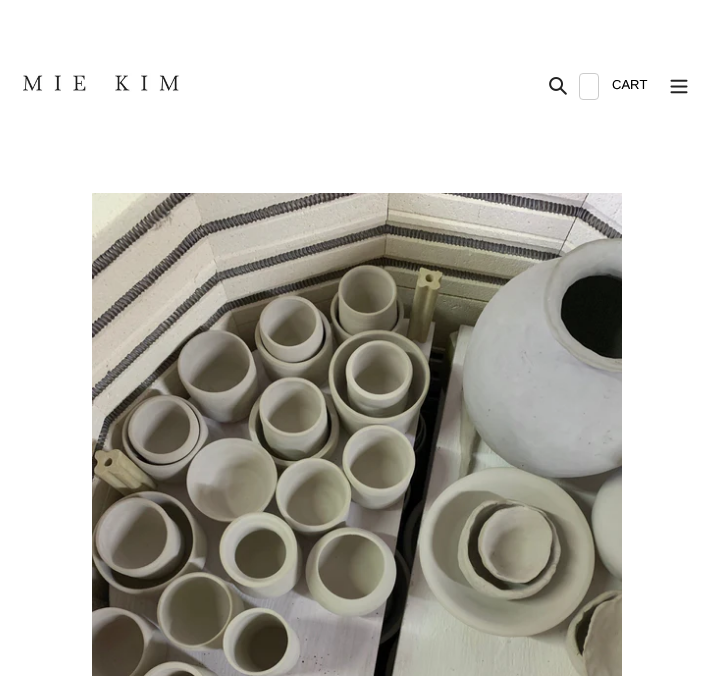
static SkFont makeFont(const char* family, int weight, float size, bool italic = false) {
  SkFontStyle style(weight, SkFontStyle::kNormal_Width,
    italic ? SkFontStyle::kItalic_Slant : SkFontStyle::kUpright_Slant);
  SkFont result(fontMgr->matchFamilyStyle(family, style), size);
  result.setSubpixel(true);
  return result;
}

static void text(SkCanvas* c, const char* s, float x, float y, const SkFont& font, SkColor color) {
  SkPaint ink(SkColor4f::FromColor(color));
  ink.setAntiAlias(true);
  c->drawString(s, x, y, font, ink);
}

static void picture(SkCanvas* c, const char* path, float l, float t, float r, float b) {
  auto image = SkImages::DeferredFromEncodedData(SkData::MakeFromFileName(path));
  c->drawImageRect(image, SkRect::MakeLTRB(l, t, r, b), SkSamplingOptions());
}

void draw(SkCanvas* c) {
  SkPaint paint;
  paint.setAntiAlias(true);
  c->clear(0xffffffff);
  picture(c, "img_01.png", 23, 73, 180, 92);
  picture(c, "img_02.png", 549, 77, 567, 95);
  paint.setStyle(SkPaint::kStroke_Style);
  paint.setStrokeWidth(1);
  paint.setColor(0xffcccccc);
  c->drawRoundRect(SkRect::MakeLTRB(579.5f, 73.5f, 598.5f, 99.5f), 3.5f, 3.5f, paint);
  SkFont face1 = makeFont("Liberation Sans", 400, 13);
  text(c, "CART", 612, 89, face1, 0xff000000);
  picture(c, "img_03.png", 670, 79, 688, 94);
  picture(c, "img_04.png", 92, 193, 622, 676);
}
